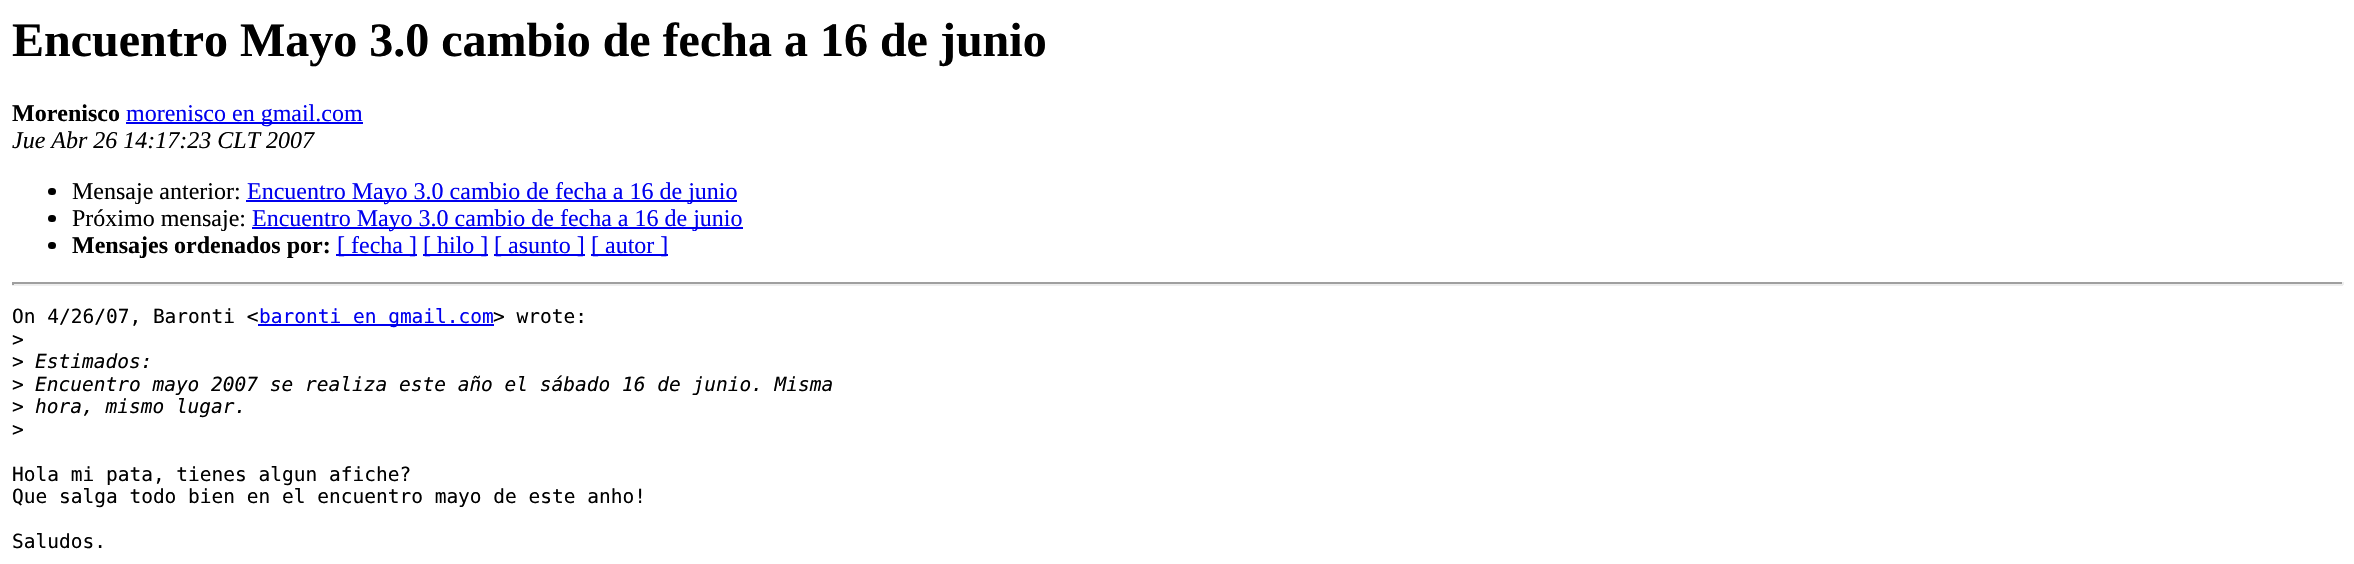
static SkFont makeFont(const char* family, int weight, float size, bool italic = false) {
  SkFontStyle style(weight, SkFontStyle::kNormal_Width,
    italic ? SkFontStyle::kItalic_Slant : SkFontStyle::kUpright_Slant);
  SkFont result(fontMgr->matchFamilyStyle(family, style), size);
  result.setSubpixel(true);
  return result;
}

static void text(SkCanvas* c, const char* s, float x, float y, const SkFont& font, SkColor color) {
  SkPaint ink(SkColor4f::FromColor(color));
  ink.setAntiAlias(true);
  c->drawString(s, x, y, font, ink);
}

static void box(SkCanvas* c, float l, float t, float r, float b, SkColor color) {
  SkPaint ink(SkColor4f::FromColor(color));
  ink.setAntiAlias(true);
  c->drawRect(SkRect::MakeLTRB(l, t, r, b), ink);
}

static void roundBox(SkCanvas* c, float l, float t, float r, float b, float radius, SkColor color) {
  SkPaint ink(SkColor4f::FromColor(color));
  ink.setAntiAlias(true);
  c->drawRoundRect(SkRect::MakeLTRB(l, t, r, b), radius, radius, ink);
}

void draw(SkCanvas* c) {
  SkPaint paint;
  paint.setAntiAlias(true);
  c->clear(0xffffffff);
  SkFont face1 = makeFont("Liberation Serif", 700, 48);
  text(c, "Encuentro Mayo 3.0 cambio de fecha a 16 de junio", 12, 56, face1, 0xff000000);
  SkFont face2 = makeFont("Liberation Serif", 700, 24);
  text(c, "Morenisco", 12, 121, face2, 0xff000000);
  box(c, 126, 122, 363, 124, 0xff0000ee);
  SkFont face3 = makeFont("Liberation Serif", 400, 24);
  text(c, "morenisco en gmail.com", 126, 121, face3, 0xff0000ee);
  SkFont face4 = makeFont("Liberation Serif", 400, 24, true);
  text(c, "Jue Abr 26 14:17:23 CLT 2007", 12, 148, face4, 0xff000000);
  roundBox(c, 48, 188, 56, 195, 3.5f, 0xff000000);
  text(c, "Mensaje anterior:", 72, 199, face3, 0xff000000);
  box(c, 246, 200, 737, 202, 0xff0000ee);
  text(c, "Encuentro Mayo 3.0 cambio de fecha a 16 de junio", 247, 199, face3, 0xff0000ee);
  roundBox(c, 48, 215, 56, 222, 3.5f, 0xff000000);
  text(c, "Próximo mensaje:", 72, 226, face3, 0xff000000);
  box(c, 252, 227, 743, 229, 0xff0000ee);
  text(c, "Encuentro Mayo 3.0 cambio de fecha a 16 de junio", 252, 226, face3, 0xff0000ee);
  roundBox(c, 48, 242, 56, 249, 3.5f, 0xff000000);
  text(c, "Mensajes ordenados por:", 72, 253, face2, 0xff000000);
  box(c, 336, 254, 417, 256, 0xff0000ee);
  text(c, "[ fecha ]", 337, 253, face3, 0xff0000ee);
  box(c, 423, 254, 488, 256, 0xff0000ee);
  text(c, "[ hilo ]", 423, 253, face3, 0xff0000ee);
  box(c, 494, 254, 585, 256, 0xff0000ee);
  text(c, "[ asunto ]", 494, 253, face3, 0xff0000ee);
  box(c, 591, 254, 668, 256, 0xff0000ee);
  text(c, "[ autor ]", 591, 253, face3, 0xff0000ee);
  box(c, 12, 282, 2343, 284, 0xff9f9f9f);
  box(c, 2342, 282, 2344, 285, 0xffeeeeee);
  box(c, 12, 284, 2343, 286, 0xffeeeeee);
  box(c, 12, 282, 14, 285, 0xff9f9f9f);
  SkFont face5 = makeFont("DejaVu Sans Mono", 400, 19.5f);
  text(c, "On 4/26/07, Baronti <", 12, 323, face5, 0xff000000);
  box(c, 258, 324, 494, 326, 0xff0000ee);
  text(c, "baronti en gmail.com", 259, 323, face5, 0xff0000ee);
  text(c, "> wrote:", 493, 323, face5, 0xff000000);
  text(c, ">", 12, 346, face5, 0xff000000);
  text(c, ">", 12, 368, face5, 0xff000000);
  SkFont face6 = makeFont("DejaVu Sans Mono", 400, 19.5f, true);
  text(c, "Estimados:", 35, 368, face6, 0xff000000);
  text(c, ">", 12, 391, face5, 0xff000000);
  text(c, "Encuentro mayo 2007 se realiza este año el sábado 16 de junio. Misma", 35, 391, face6, 0xff000000);
  text(c, ">", 12, 413, face5, 0xff000000);
  text(c, "hora, mismo lugar.", 35, 413, face6, 0xff000000);
  text(c, ">", 12, 436, face5, 0xff000000);
  text(c, "Hola mi pata, tienes algun afiche?", 12, 481, face5, 0xff000000);
  text(c, "Que salga todo bien en el encuentro mayo de este anho!", 12, 503, face5, 0xff000000);
  text(c, "Saludos.", 12, 548, face5, 0xff000000);
}
